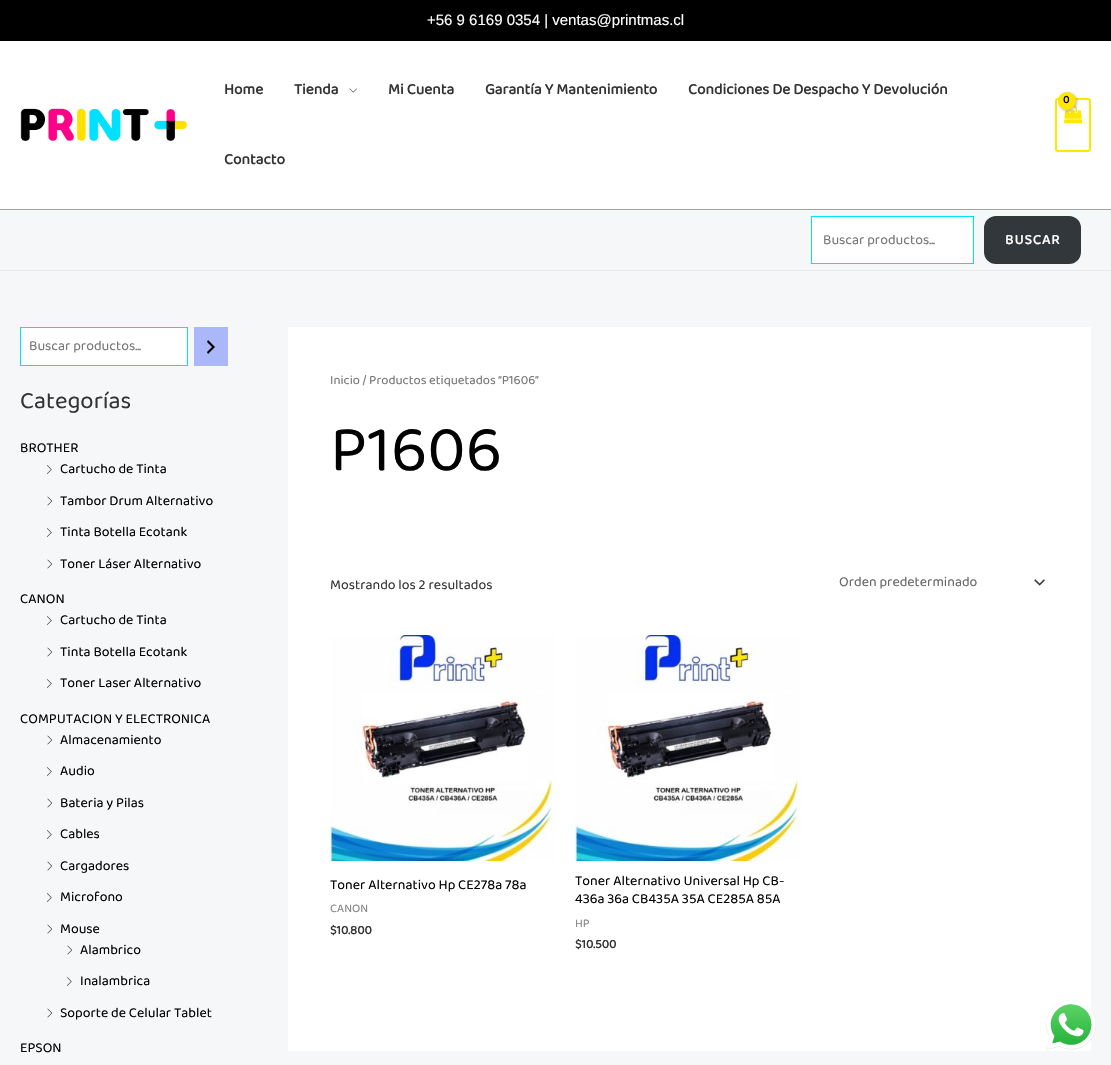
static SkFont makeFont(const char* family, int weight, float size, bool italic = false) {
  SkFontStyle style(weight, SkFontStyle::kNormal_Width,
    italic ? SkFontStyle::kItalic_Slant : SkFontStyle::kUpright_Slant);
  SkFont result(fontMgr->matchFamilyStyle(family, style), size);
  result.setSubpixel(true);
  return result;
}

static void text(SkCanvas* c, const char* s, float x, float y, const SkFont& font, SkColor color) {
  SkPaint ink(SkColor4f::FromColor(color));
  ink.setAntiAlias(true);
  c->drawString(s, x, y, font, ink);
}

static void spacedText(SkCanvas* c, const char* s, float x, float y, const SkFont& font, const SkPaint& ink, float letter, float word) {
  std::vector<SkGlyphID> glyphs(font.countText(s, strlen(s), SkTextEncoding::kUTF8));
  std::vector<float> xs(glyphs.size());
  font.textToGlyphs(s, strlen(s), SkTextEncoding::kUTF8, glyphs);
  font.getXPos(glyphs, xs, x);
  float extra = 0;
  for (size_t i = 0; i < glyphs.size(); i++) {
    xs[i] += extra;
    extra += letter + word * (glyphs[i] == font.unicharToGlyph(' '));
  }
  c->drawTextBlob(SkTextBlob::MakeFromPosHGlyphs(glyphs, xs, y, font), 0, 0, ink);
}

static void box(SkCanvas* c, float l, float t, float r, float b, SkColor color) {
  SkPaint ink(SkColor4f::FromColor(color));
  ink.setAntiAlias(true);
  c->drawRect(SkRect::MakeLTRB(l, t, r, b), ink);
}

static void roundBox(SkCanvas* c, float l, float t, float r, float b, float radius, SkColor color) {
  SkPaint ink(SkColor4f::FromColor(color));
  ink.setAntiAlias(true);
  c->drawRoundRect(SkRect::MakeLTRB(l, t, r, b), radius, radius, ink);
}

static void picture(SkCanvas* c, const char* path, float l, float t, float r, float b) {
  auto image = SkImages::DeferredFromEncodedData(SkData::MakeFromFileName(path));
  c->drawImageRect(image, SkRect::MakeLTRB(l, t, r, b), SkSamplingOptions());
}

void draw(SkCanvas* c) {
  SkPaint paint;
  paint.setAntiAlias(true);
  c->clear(0xfff5f7f9);
  box(c, 0, 0, 1111, 41, 0xff000000);
  SkFont face1 = makeFont("Liberation Sans", 400, 15);
  text(c, "+56 9 6169 0354 | ventas@printmas.cl", 427, 25, face1, 0xffffffff);
  box(c, 0, 41, 1111, 209, 0xffffffff);
  box(c, 0, 209, 1111, 210, 0xff00e1ff);
  picture(c, "img_01.png", 20, 108, 187, 141);
  SkFont face2 = makeFont("Baloo 2", 700, 15.4f);
  text(c, "Home", 224, 94, face2, 0xff333333);
  text(c, "Tienda", 294, 94, face2, 0xff333333);
  picture(c, "img_02.png", 349, 88, 357, 93);
  text(c, "Mi Cuenta", 388, 94, face2, 0xff333333);
  text(c, "Garantía Y Mantenimiento", 485, 94, face2, 0xff333333);
  text(c, "Condiciones De Despacho Y Devolución", 688, 94, face2, 0xff333333);
  text(c, "Contacto", 224, 164, face2, 0xff333333);
  paint.setStyle(SkPaint::kStroke_Style);
  paint.setStrokeWidth(2);
  paint.setColor(0xfffee800);
  c->drawRoundRect(SkRect::MakeLTRB(1056, 99, 1090, 151), 2, 2, paint);
  picture(c, "img_03.png", 1064, 105, 1083, 124);
  paint.setStyle(SkPaint::kFill_Style);
  paint.setColor(0x4d000000);
  paint.setMaskFilter(SkMaskFilter::MakeBlur(kNormal_SkBlurStyle, 1.5f));
  c->drawRoundRect(SkRect::MakeLTRB(1059, 93, 1077, 111), 9, 9, paint);
  paint.setMaskFilter(nullptr);
  paint.setColor(0xfffee800);
  c->drawCircle(1067, 101, 9, paint);
  SkFont face3 = makeFont("Baloo 2", 700, 11);
  text(c, "0", 1063, 103, face3, 0xff000000);
  box(c, 0, 270, 1111, 271, 0xffeaeaea);
  paint.setColor(0xffffffff);
  c->drawRect(SkRect::MakeLTRB(811.5f, 216.5f, 973.5f, 263.5f), paint);
  paint.setStyle(SkPaint::kStroke_Style);
  paint.setStrokeWidth(1);
  paint.setColor(0xff00e1ff);
  c->drawRect(SkRect::MakeLTRB(811.5f, 216.5f, 973.5f, 263.5f), paint);
  SkFont face4 = makeFont("Baloo 2", 400, 14);
  text(c, "Buscar productos...", 823, 244, face4, 0xff757575);
  roundBox(c, 984, 216, 1081, 264, 12, 0xff32373c);
  SkFont face5 = makeFont("Baloo 2", 700, 14);
  paint.setStyle(SkPaint::kFill_Style);
  paint.setColor(0xffffffff);
  spacedText(c, "BUSCAR", 1005, 244, face5, paint, 1, 0);
  c->drawRect(SkRect::MakeLTRB(20.5f, 327.5f, 187.5f, 365.5f), paint);
  paint.setStyle(SkPaint::kStroke_Style);
  paint.setColor(0xff00e1ff);
  c->drawRect(SkRect::MakeLTRB(20.5f, 327.5f, 187.5f, 365.5f), paint);
  text(c, "Buscar productos...", 29, 350, face4, 0xff757575);
  box(c, 194, 327, 228, 366, 0xffaab8f9);
  picture(c, "img_04.png", 207, 340, 215, 354);
  SkFont face6 = makeFont("Baloo 2", 400, 24);
  text(c, "Categorías", 20, 408, face6, 0xff333333);
  text(c, "BROTHER", 20, 452, face4, 0xff000000);
  picture(c, "img_05.png", 47, 465, 52, 474);
  text(c, "Cartucho de Tinta", 60, 473, face4, 0xff000000);
  picture(c, "img_06.png", 47, 496, 53, 506);
  text(c, "Tambor Drum Alternativo", 60, 505, face4, 0xff000000);
  picture(c, "img_05.png", 47, 528, 52, 537);
  text(c, "Tinta Botella Ecotank", 60, 536, face4, 0xff000000);
  picture(c, "img_06.png", 47, 559, 53, 569);
  text(c, "Toner Láser Alternativo", 60, 568, face4, 0xff000000);
  text(c, "CANON", 20, 603, face4, 0xff000000);
  picture(c, "img_05.png", 47, 616, 52, 625);
  text(c, "Cartucho de Tinta", 60, 624, face4, 0xff000000);
  picture(c, "img_06.png", 47, 647, 53, 657);
  text(c, "Tinta Botella Ecotank", 60, 656, face4, 0xff000000);
  picture(c, "img_05.png", 47, 679, 52, 688);
  text(c, "Toner Laser Alternativo", 60, 687, face4, 0xff000000);
  text(c, "COMPUTACION Y ELECTRONICA", 20, 723, face4, 0xff000000);
  picture(c, "img_06.png", 47, 735, 53, 745);
  text(c, "Almacenamiento", 60, 744, face4, 0xff000000);
  picture(c, "img_05.png", 47, 767, 52, 776);
  text(c, "Audio", 60, 775, face4, 0xff000000);
  picture(c, "img_06.png", 47, 798, 53, 808);
  text(c, "Bateria y Pilas", 60, 807, face4, 0xff000000);
  picture(c, "img_05.png", 47, 830, 52, 839);
  text(c, "Cables", 60, 838, face4, 0xff000000);
  picture(c, "img_06.png", 47, 861, 53, 871);
  text(c, "Cargadores", 60, 870, face4, 0xff000000);
  picture(c, "img_05.png", 47, 893, 52, 902);
  text(c, "Microfono", 60, 901, face4, 0xff000000);
  picture(c, "img_06.png", 47, 924, 53, 934);
  text(c, "Mouse", 60, 933, face4, 0xff000000);
  picture(c, "img_06.png", 67, 945, 73, 955);
  text(c, "Alambrico", 80, 954, face4, 0xff000000);
  picture(c, "img_05.png", 67, 977, 72, 986);
  text(c, "Inalambrica", 80, 985, face4, 0xff000000);
  picture(c, "img_06.png", 47, 1008, 53, 1018);
  text(c, "Soporte de Celular Tablet", 60, 1017, face4, 0xff000000);
  text(c, "EPSON", 20, 1052, face4, 0xff000000);
  box(c, 288, 327, 1091, 1051, 0xffffffff);
  SkFont face7 = makeFont("Baloo 2", 400, 12.9f);
  text(c, "Inicio / Productos etiquetados “P1606”", 330, 384, face7, 0xff757575);
  SkFont face8 = makeFont("Baloo 2", 400, 66);
  text(c, "P1606", 330, 470, face8, 0xff000000);
  text(c, "Mostrando los 2 resultados", 330, 589, face4, 0xff333333);
  picture(c, "img_07.png", 1034, 579, 1045, 586);
  text(c, "Orden predeterminado", 839, 586, face4, 0xff666666);
  picture(c, "img_08.png", 330, 635, 555, 861);
  text(c, "Toner Alternativo Hp CE278a 78a", 330, 889, face4, 0xff000000);
  SkFont face9 = makeFont("Baloo 2", 400, 12);
  text(c, "CANON", 330, 912, face9, 0xff858585);
  SkFont face10 = makeFont("Baloo 2", 700, 12.5f);
  text(c, "$10.800", 330, 934, face10, 0xff333333);
  picture(c, "img_09.png", 575, 635, 801, 861);
  text(c, "Toner Alternativo Universal Hp CB-", 575, 885, face4, 0xff000000);
  text(c, "436a 36a CB435A 35A CE285A 85A", 575, 903, face4, 0xff000000);
  text(c, "HP", 575, 927, face9, 0xff858585);
  text(c, "$10.500", 575, 948, face10, 0xff333333);
  picture(c, "img_10.png", 1046, 1000, 1096, 1050);
}
